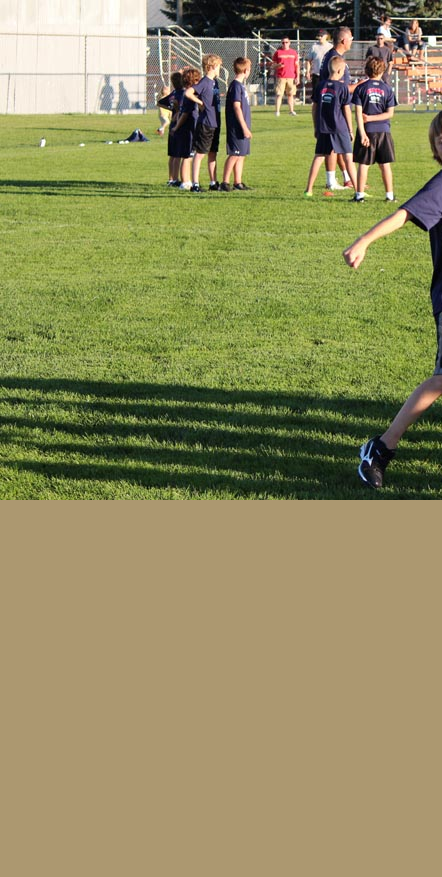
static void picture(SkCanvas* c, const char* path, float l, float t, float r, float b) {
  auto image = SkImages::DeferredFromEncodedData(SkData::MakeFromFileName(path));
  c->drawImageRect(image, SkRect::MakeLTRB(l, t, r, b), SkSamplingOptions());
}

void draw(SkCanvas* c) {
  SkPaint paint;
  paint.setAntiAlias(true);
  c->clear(0xffac9870);
  picture(c, "img_01.png", 0, 0, 442, 500);
}
